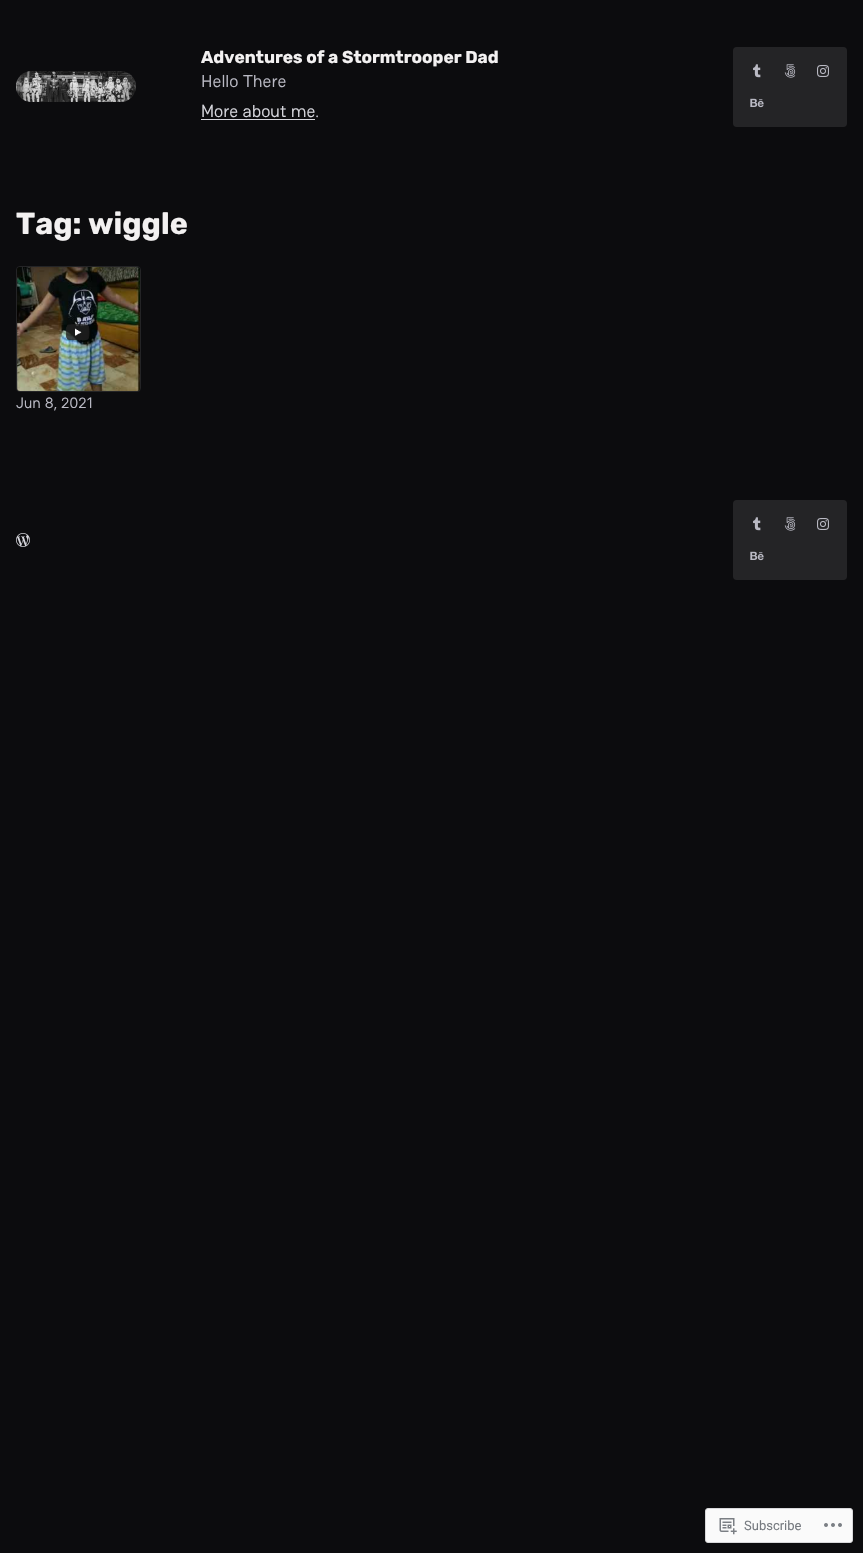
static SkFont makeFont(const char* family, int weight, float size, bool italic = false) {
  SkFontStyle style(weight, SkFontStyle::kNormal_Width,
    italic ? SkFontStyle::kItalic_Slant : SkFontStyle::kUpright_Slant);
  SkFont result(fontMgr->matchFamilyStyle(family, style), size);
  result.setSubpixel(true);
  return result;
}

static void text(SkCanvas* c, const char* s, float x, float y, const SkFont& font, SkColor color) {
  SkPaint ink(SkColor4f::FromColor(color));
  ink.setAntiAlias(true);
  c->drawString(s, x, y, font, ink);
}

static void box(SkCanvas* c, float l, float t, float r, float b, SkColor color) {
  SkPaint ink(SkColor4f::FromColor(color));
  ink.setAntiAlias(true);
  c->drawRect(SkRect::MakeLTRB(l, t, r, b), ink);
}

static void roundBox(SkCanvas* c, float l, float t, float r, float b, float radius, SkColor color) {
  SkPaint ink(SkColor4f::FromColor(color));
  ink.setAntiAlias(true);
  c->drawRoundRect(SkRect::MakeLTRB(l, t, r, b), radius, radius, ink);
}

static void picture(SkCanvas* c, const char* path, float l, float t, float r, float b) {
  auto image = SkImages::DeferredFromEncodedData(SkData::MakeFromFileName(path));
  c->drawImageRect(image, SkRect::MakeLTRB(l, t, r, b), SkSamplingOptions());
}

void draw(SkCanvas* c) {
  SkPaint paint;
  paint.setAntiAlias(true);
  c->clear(0xff0c0c0e);
  picture(c, "img_01.png", 16, 71, 136, 102);
  SkFont face1 = makeFont("Rubik", 700, 17.25f);
  text(c, "Adventures of a Stormtrooper Dad", 201, 63, face1, 0xfff3f1f1);
  SkFont face2 = makeFont("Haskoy", 400, 17.25f);
  text(c, "Hello There", 201, 87, face2, 0xffbabac4);
  text(c, "More about me", 201, 117, face2, 0xffd6d6dc);
  box(c, 201, 119, 315, 120, 0xffd6d6dc);
  text(c, ".", 315, 117, face2, 0xffbabac4);
  roundBox(c, 733, 47, 847, 127, 4, 0xff242426);
  picture(c, "img_02.png", 753, 64, 761, 78);
  picture(c, "img_03.png", 784, 64, 796, 78);
  picture(c, "img_04.png", 817, 65, 829, 77);
  picture(c, "img_05.png", 750, 98, 764, 108);
  SkFont face3 = makeFont("Rubik", 700, 30.5f);
  text(c, "Tag: wiggle", 16, 234, face3, 0xfff3f1f1);
  paint.setStyle(SkPaint::kStroke_Style);
  paint.setStrokeWidth(1);
  paint.setColor(0xff242426);
  c->drawRoundRect(SkRect::MakeLTRB(16.5f, 266.5f, 140.5f, 391.5f), 3.5f, 3.5f, paint);
  picture(c, "img_06.png", 17, 267, 140, 391);
  SkFont face4 = makeFont("Haskoy", 400, 15);
  text(c, "Jun 8, 2021", 16, 408, face4, 0xffbabac4);
  picture(c, "img_07.png", 16, 533, 30, 547);
  roundBox(c, 733, 500, 847, 580, 4, 0xff242426);
  picture(c, "img_02.png", 753, 517, 761, 531);
  picture(c, "img_03.png", 784, 517, 796, 531);
  picture(c, "img_04.png", 817, 518, 829, 530);
  picture(c, "img_05.png", 750, 551, 764, 561);
  paint.setStyle(SkPaint::kFill_Style);
  paint.setColor(0xfffafafa);
  c->drawRoundRect(SkRect::MakeLTRB(705.5f, 1508.5f, 852.5f, 1542.5f), 2.5f, 2.5f, paint);
  paint.setStyle(SkPaint::kStroke_Style);
  paint.setColor(0xffd8d8da);
  c->drawRoundRect(SkRect::MakeLTRB(705.5f, 1508.5f, 852.5f, 1542.5f), 2.5f, 2.5f, paint);
  picture(c, "img_08.png", 719, 1518, 737, 1535);
  SkFont face5 = makeFont("Roboto", 400, 13);
  text(c, "Subscribe", 744, 1530, face5, 0xff767a80);
  picture(c, "img_09.png", 824, 1523, 842, 1527);
}
